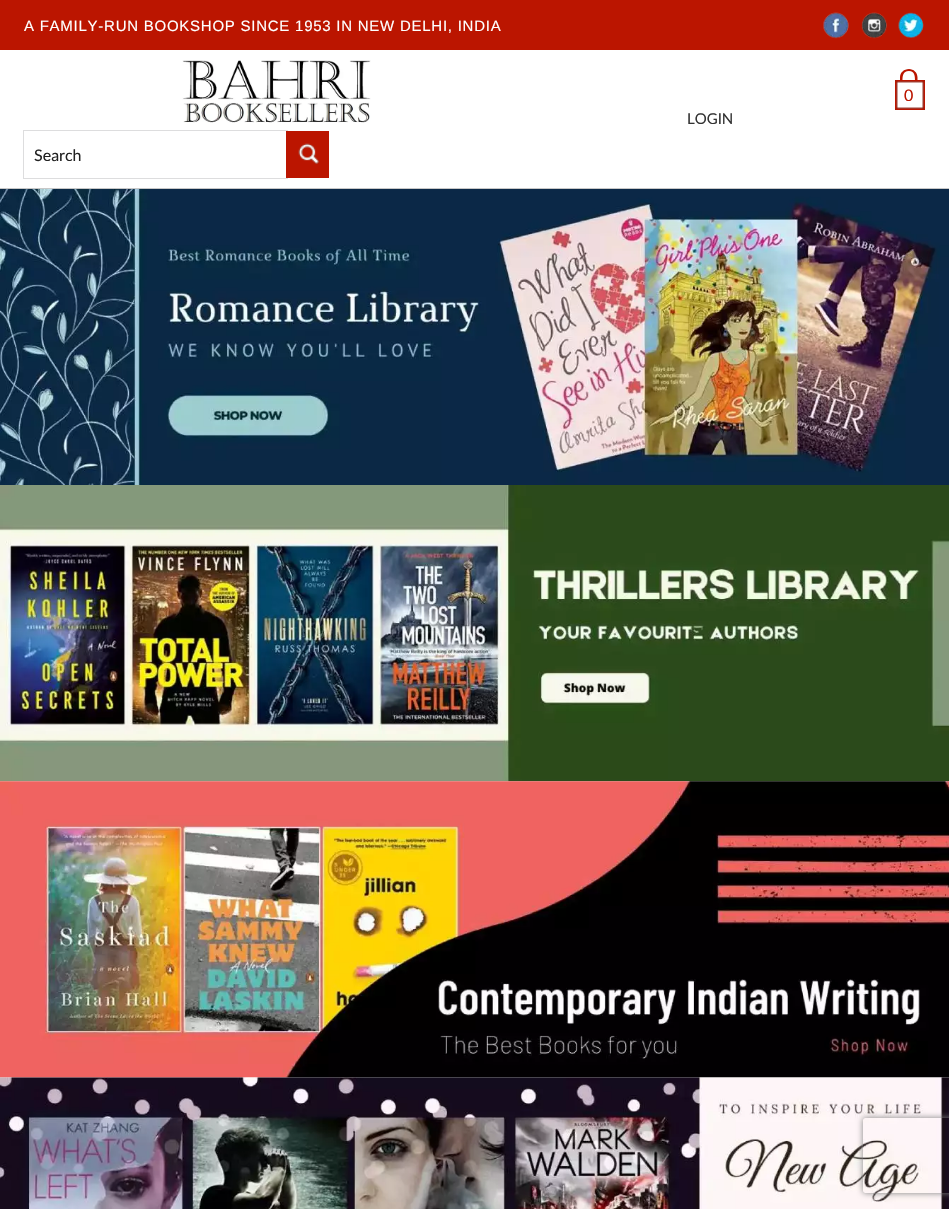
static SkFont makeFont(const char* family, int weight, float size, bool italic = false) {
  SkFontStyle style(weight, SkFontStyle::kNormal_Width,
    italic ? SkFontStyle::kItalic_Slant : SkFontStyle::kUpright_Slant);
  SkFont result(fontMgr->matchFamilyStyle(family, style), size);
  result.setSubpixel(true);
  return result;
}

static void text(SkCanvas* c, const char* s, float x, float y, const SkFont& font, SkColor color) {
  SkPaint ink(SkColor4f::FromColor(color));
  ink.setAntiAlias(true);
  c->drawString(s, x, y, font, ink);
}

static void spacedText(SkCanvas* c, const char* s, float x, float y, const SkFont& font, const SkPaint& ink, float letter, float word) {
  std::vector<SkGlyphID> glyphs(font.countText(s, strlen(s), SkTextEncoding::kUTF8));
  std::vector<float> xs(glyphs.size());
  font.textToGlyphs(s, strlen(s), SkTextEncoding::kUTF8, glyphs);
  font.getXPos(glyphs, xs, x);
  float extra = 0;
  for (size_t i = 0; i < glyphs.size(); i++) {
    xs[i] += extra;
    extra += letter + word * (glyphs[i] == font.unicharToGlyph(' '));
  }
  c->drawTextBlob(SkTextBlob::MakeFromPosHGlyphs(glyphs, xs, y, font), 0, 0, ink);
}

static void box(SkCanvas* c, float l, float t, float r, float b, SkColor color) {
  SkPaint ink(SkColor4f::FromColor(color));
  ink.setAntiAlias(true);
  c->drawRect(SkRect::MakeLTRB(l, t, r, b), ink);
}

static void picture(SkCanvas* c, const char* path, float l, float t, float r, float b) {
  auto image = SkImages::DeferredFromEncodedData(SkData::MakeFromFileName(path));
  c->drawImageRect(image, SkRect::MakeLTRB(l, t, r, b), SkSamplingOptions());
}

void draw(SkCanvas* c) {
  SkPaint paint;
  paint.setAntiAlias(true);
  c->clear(0xffffffff);
  box(c, 0, 188, 949, 189, 0xffc7c7c7);
  box(c, 0, 0, 949, 50, 0xffbb1500);
  SkFont face1 = makeFont("Liberation Sans", 400, 15);
  paint.setColor(0xffffffff);
  spacedText(c, "A FAMILY-RUN BOOKSHOP SINCE 1953 IN NEW DELHI, INDIA", 24, 31, face1, paint, 0.75f, 0);
  picture(c, "img_01.png", 823, 12, 849, 39);
  picture(c, "img_02.png", 861, 12, 887, 39);
  picture(c, "img_03.png", 898, 12, 924, 38);
  picture(c, "img_04.png", 182, 60, 371, 123);
  picture(c, "img_05.png", 895, 80, 925, 110);
  paint.setColor(0xffbb1500);
  c->drawPath(SkPathBuilder(SkPathFillType::kEvenOdd).moveTo(909, 69).cubicTo(913.5f, 69, 917.5f, 72.5f, 917.5f, 77.5f).lineTo(917.5f, 81).lineTo(900, 81).lineTo(900, 77.5f).cubicTo(900, 72.5f, 904, 69, 909, 69).close().moveTo(909, 71).cubicTo(915, 71, 915, 77, 915, 81).lineTo(902.5f, 81).cubicTo(902.5f, 77, 902.5f, 71, 909, 71).close().detach(), paint);
  SkFont face2 = makeFont("Lato", 400, 16);
  text(c, "0", 904, 101, face2, 0xffbb1500);
  SkFont face3 = makeFont("Lato", 400, 15);
  text(c, "LOGIN", 687, 124, face3, 0xff333333);
  paint.setStyle(SkPaint::kStroke_Style);
  paint.setStrokeWidth(1);
  paint.setColor(0xffddddde);
  c->drawRect(SkRect::MakeLTRB(23.5f, 130.5f, 287.5f, 178.5f), paint);
  text(c, "Search", 34, 161, face2, 0xff222222);
  box(c, 286, 131, 329, 178, 0xffbb1500);
  picture(c, "img_06.png", 298, 143, 319, 164);
  picture(c, "img_07.png", 0, 189, 949, 485);
  picture(c, "img_08.png", 0, 485, 949, 782);
  picture(c, "img_09.png", 0, 781, 949, 1078);
  picture(c, "img_10.png", 0, 1077, 949, 1209);
  c->save();
  c->clipPath(SkPathBuilder(SkPathFillType::kEvenOdd).moveTo(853, 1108).lineTo(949, 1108).lineTo(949, 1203).lineTo(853, 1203).close().moveTo(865.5f, 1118).lineTo(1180.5f, 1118).cubicTo(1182, 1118, 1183, 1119, 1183, 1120.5f).lineTo(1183, 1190.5f).cubicTo(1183, 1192, 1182, 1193, 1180.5f, 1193).lineTo(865.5f, 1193).cubicTo(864, 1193, 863, 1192, 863, 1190.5f).lineTo(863, 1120.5f).cubicTo(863, 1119, 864, 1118, 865.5f, 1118).close().detach(), true);
  paint.setStyle(SkPaint::kFill_Style);
  paint.setColor(0xff808080);
  paint.setMaskFilter(SkMaskFilter::MakeBlur(kNormal_SkBlurStyle, 3));
  c->drawRoundRect(SkRect::MakeLTRB(863, 1118, 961, 1193), 2.5f, 2.5f, paint);
  paint.setMaskFilter(nullptr);
  c->restore();
}
